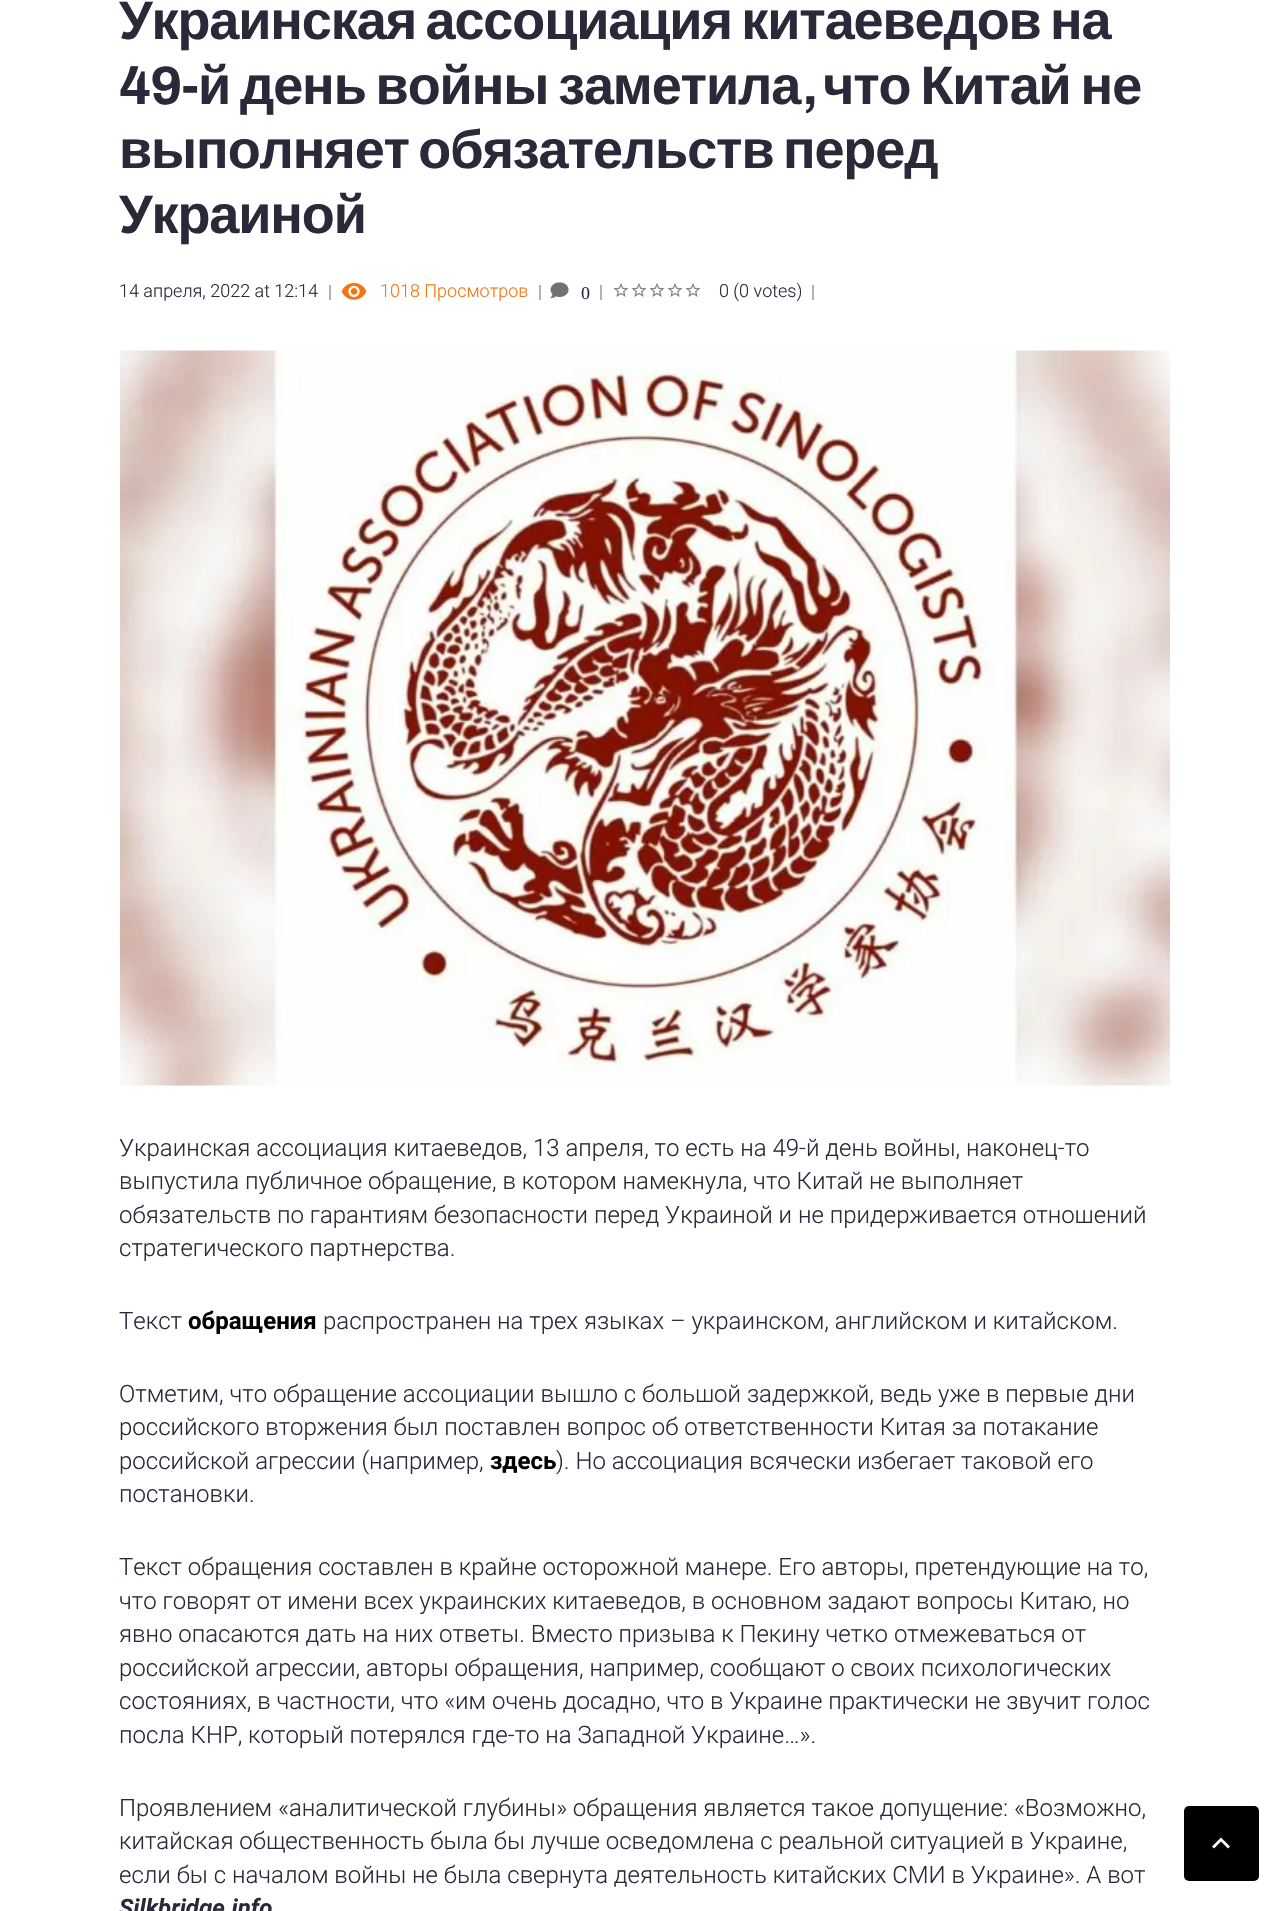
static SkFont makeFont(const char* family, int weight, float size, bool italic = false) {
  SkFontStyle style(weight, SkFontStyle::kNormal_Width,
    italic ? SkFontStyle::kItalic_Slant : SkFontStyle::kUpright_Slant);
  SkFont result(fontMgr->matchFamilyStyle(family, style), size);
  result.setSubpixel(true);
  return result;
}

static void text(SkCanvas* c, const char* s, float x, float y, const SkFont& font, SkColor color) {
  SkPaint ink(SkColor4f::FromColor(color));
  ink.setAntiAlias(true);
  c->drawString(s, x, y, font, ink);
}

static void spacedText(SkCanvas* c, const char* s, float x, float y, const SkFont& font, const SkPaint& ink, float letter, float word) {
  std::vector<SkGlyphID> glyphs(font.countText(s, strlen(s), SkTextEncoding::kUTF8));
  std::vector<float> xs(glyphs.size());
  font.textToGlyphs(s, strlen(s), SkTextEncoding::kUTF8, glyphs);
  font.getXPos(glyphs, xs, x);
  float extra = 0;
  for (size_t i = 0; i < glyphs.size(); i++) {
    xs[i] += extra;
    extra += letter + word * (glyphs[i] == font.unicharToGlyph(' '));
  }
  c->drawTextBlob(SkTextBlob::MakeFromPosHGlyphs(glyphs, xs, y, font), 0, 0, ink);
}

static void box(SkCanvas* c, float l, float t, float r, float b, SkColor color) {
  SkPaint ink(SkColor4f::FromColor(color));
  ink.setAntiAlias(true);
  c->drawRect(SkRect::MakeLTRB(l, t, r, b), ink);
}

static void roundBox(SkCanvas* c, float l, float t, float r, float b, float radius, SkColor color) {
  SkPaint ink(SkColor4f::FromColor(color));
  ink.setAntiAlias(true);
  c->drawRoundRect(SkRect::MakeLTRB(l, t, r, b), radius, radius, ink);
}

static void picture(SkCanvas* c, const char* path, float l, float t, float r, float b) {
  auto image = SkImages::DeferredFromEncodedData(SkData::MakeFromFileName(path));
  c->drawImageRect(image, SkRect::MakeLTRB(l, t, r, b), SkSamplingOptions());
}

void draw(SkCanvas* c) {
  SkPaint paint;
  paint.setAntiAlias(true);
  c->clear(0xffffffff);
  SkFont face1 = makeFont("Liberation Sans", 700, 54);
  paint.setColor(0xff29293a);
  spacedText(c, "Украинская ассоциация китаеведов на", 119, 39, face1, paint, -1.1f, -4.5f);
  SkFont face2 = makeFont("Archivo", 700, 54);
  spacedText(c, "49-", 119, 104, face2, paint, -1.1f, 0);
  spacedText(c, "й день войны заметила", 198, 104, face1, paint, -1.1f, -4);
  spacedText(c, ",", 802, 104, face2, paint, -1.1f, 0);
  spacedText(c, "что Китай не", 823, 104, face1, paint, -1.1f, -4);
  spacedText(c, "выполняет обязательств перед", 119, 168, face1, paint, -1.1f, -4.5f);
  spacedText(c, "Украиной", 119, 233, face1, paint, -1.1f, 0);
  SkFont face3 = makeFont("Roboto", 300, 18);
  text(c, "14 апреля, 2022 at 12:14", 119, 297, face3, 0xff29293a);
  box(c, 329, 285, 331, 300, 0xffb3b3b3);
  picture(c, "img_01.png", 341, 282, 367, 300);
  text(c, "1018 Просмотров", 380, 297, face3, 0xfff47512);
  box(c, 539, 285, 541, 300, 0xffb3b3b3);
  picture(c, "img_02.png", 550, 282, 569, 299);
  SkFont face4 = makeFont("Liberation Serif", 400, 18);
  text(c, "0", 581, 299, face4, 0xff29293a);
  box(c, 600, 285, 602, 300, 0xffb3b3b3);
  picture(c, "img_03.png", 613, 283, 629, 297);
  picture(c, "img_03.png", 631, 283, 647, 297);
  picture(c, "img_03.png", 649, 283, 665, 297);
  picture(c, "img_03.png", 667, 283, 683, 297);
  picture(c, "img_03.png", 685, 283, 701, 297);
  text(c, "0 (0 votes)", 719, 297, face3, 0xff29293a);
  box(c, 812, 285, 814, 300, 0xffb3b3b3);
  picture(c, "img_04.png", 120, 350, 1170, 1086);
  SkFont face5 = makeFont("Roboto", 300, 24);
  text(c, "Украинская ассоциация китаеведов, 13 апреля, то есть на 49-й день войны, наконец-то", 119, 1156, face5, 0xff29293a);
  text(c, "выпустила публичное обращение, в котором намекнула, что Китай не выполняет", 119, 1189, face5, 0xff29293a);
  text(c, "обязательств по гарантиям безопасности перед Украиной и не придерживается отношений", 119, 1223, face5, 0xff29293a);
  text(c, "стратегического партнерства.", 119, 1256, face5, 0xff29293a);
  text(c, "Текст", 119, 1329, face5, 0xff29293a);
  SkFont face6 = makeFont("Roboto", 700, 24);
  text(c, "обращения", 188, 1329, face6, 0xff000000);
  text(c, "распространен на трех языках – украинском, английском и китайском.", 323, 1329, face5, 0xff29293a);
  text(c, "Отметим, что обращение ассоциации вышло с большой задержкой, ведь уже в первые дни", 119, 1402, face5, 0xff29293a);
  text(c, "российского вторжения был поставлен вопрос об ответственности Китая за потакание", 119, 1435, face5, 0xff29293a);
  text(c, "российской агрессии (например,", 119, 1469, face5, 0xff29293a);
  text(c, "здесь", 490, 1469, face6, 0xff000000);
  text(c, "). Но ассоциация всячески избегает таковой его", 556, 1469, face5, 0xff29293a);
  text(c, "постановки.", 119, 1502, face5, 0xff29293a);
  text(c, "Текст обращения составлен в крайне осторожной манере. Его авторы, претендующие на то,", 119, 1575, face5, 0xff29293a);
  text(c, "что говорят от имени всех украинских китаеведов, в основном задают вопросы Китаю, но", 119, 1609, face5, 0xff29293a);
  text(c, "явно опасаются дать на них ответы. Вместо призыва к Пекину четко отмежеваться от", 119, 1642, face5, 0xff29293a);
  text(c, "российской агрессии, авторы обращения, например, сообщают о своих психологических", 119, 1676, face5, 0xff29293a);
  text(c, "состояниях, в частности, что «им очень досадно, что в Украине практически не звучит голос", 119, 1709, face5, 0xff29293a);
  text(c, "посла КНР, который потерялся где-то на Западной Украине…».", 119, 1743, face5, 0xff29293a);
  text(c, "Проявлением «аналитической глубины» обращения является такое допущение: «Возможно,", 119, 1816, face5, 0xff29293a);
  text(c, "китайская общественность была бы лучше осведомлена с реальной ситуацией в Украине,", 119, 1849, face5, 0xff29293a);
  text(c, "если бы с началом войны не была свернута деятельность китайских СМИ в Украине». А вот", 119, 1883, face5, 0xff29293a);
  SkFont face7 = makeFont("Roboto", 700, 24, true);
  text(c, "Silkbridge.info", 119, 1916, face7, 0xff29293a);
  roundBox(c, 1184, 1806, 1259, 1881, 5, 0xff000000);
  paint.setColor(0xffffffff);
  c->drawPath(SkPathBuilder().moveTo(1214, 1848.5f).lineTo(1221, 1841.5f).lineTo(1228, 1848.5f).lineTo(1230, 1846.5f).lineTo(1221, 1837.5f).lineTo(1212, 1846.5f).close().detach(), paint);
}
